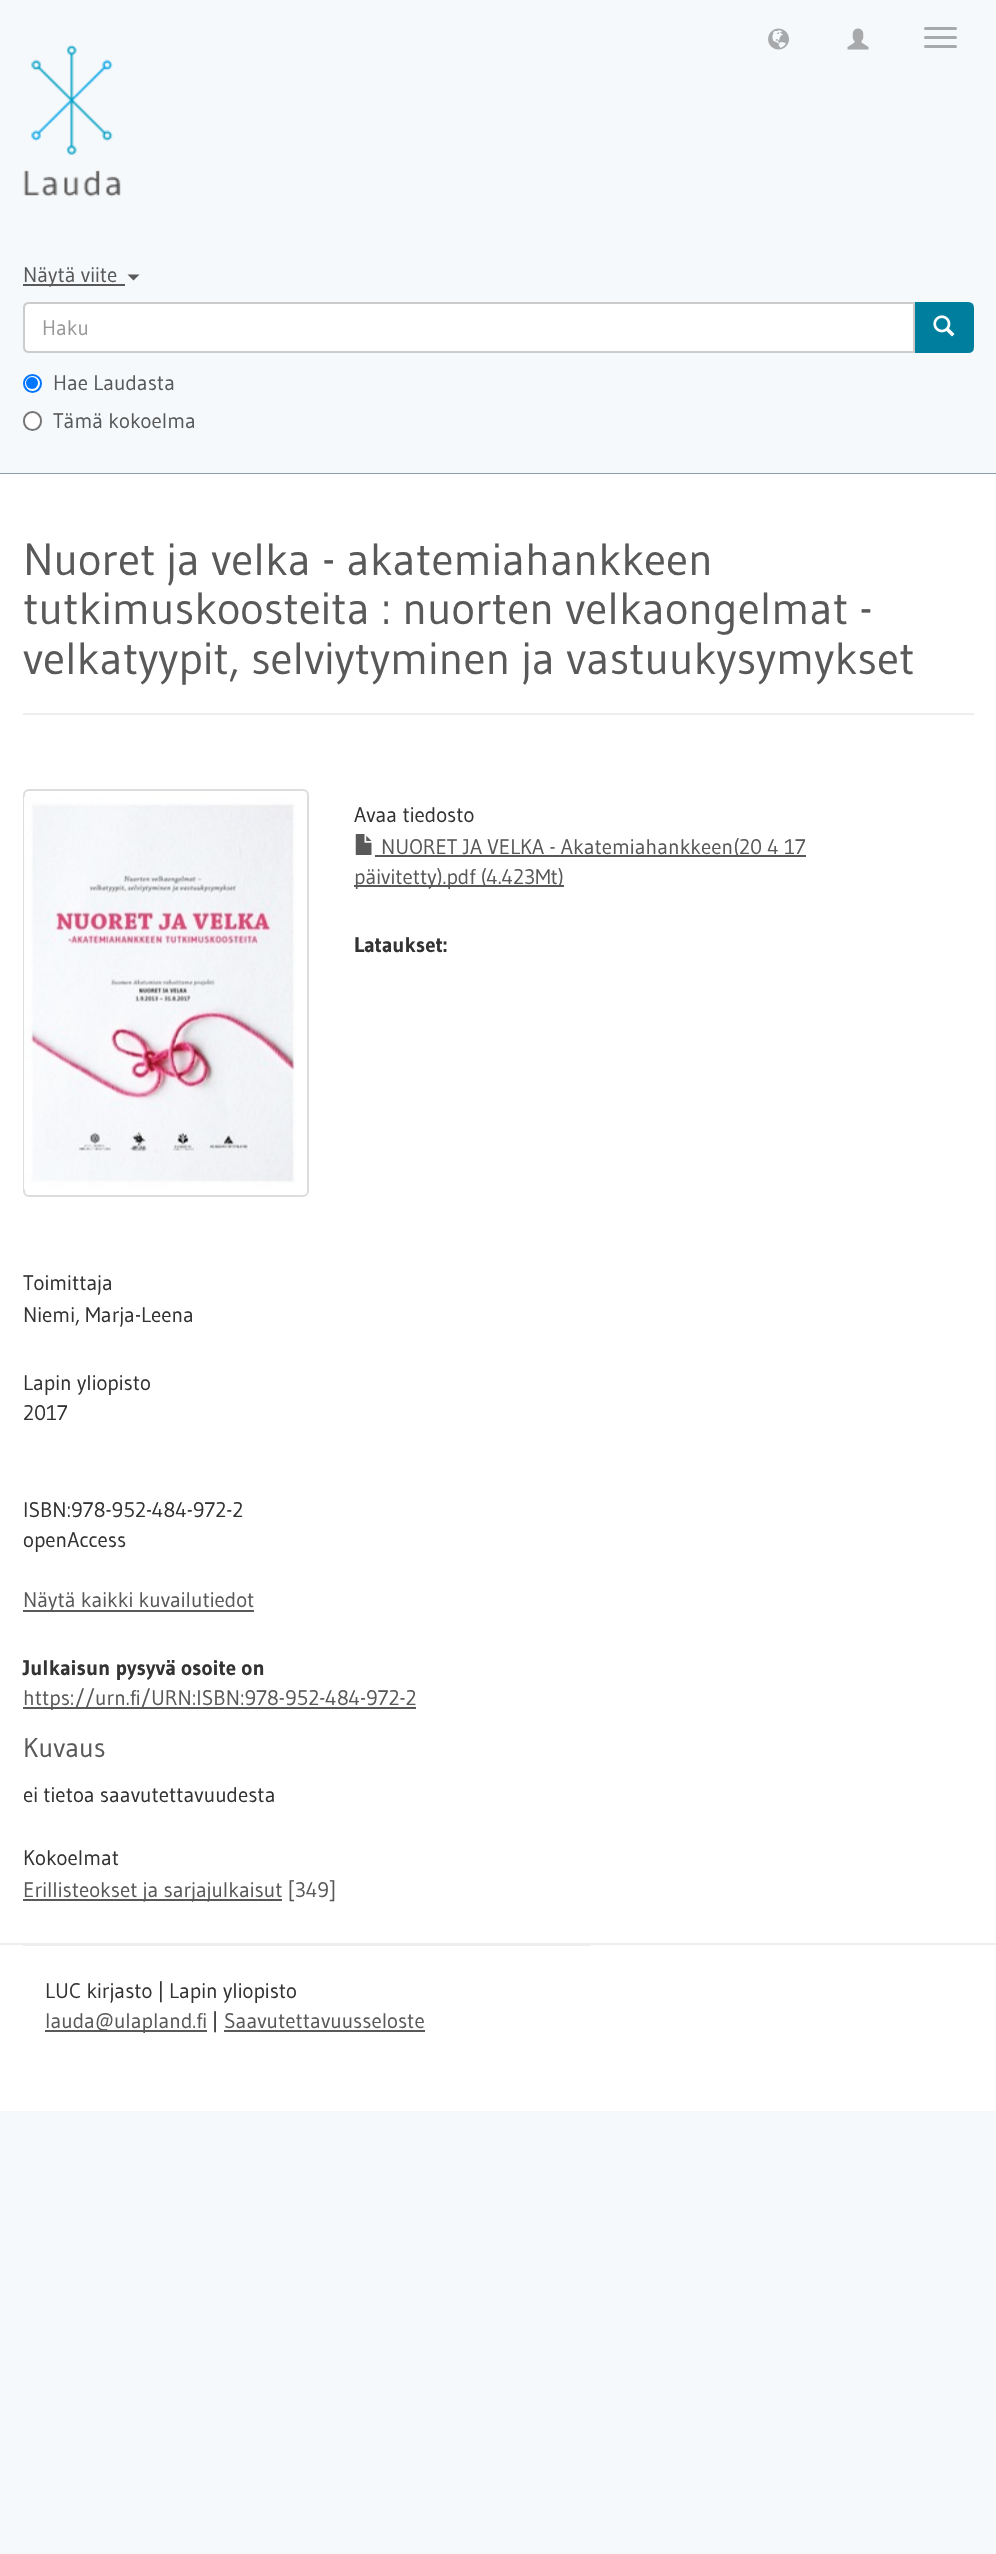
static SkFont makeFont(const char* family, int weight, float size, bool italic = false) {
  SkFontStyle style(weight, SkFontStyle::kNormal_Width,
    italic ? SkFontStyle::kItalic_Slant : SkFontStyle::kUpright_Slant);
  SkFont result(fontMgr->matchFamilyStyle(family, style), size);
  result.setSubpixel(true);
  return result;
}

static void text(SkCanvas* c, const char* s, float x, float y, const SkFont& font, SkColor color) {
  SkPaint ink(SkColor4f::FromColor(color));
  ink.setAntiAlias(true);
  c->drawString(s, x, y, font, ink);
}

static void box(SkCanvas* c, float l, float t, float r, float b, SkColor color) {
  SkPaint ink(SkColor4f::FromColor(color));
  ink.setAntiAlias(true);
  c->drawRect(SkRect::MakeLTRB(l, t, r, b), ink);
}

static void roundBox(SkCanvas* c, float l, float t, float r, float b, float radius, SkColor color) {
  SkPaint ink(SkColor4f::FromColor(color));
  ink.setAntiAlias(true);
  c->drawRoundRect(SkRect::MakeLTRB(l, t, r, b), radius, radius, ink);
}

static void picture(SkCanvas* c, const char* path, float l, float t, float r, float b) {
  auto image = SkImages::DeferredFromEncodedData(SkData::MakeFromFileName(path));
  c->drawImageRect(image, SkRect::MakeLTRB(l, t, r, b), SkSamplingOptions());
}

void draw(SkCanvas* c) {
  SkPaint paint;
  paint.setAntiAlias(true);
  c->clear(0xfff6f9fc);
  picture(c, "img_01.png", 768, 28, 789, 50);
  picture(c, "img_02.png", 847, 28, 869, 50);
  roundBox(c, 924, 27, 957, 30, 1.5f, 0xffa8a9ab);
  roundBox(c, 924, 36, 957, 39, 1.5f, 0xffa8a9ab);
  roundBox(c, 924, 45, 957, 48, 1.5f, 0xffa8a9ab);
  picture(c, "img_03.png", 23, 44, 121, 197);
  box(c, 0, 473, 996, 474, 0xff8b9eb2);
  box(c, 23, 284, 125, 286, 0xff595959);
  SkFont face1 = makeFont("Gudea", 400, 21);
  text(c, "Näytä viite", 23, 282, face1, 0xff595959);
  paint.setColor(0xff595959);
  c->drawPath(SkPathBuilder().moveTo(127.5f, 274.5f).lineTo(139.5f, 274.5f).lineTo(133.5f, 280.5f).close().detach(), paint);
  paint.setColor(0xff007e9e);
  c->drawPath(SkPathBuilder().moveTo(915, 303).lineTo(968, 303).cubicTo(971, 303, 973, 305, 973, 308).lineTo(973, 347).cubicTo(973, 350, 971, 352, 968, 352).lineTo(915, 352).close().detach(), paint);
  paint.setStyle(SkPaint::kStroke_Style);
  paint.setStrokeWidth(2);
  c->drawPath(SkPathBuilder().moveTo(915, 303).lineTo(968, 303).cubicTo(971, 303, 973, 305, 973, 308).lineTo(973, 347).cubicTo(973, 350, 971, 352, 968, 352).lineTo(915, 352).close().detach(), paint);
  paint.setStyle(SkPaint::kFill_Style);
  paint.setColor(0xffffffff);
  c->drawPath(SkPathBuilder().moveTo(29, 303).lineTo(914, 303).lineTo(914, 352).lineTo(29, 352).cubicTo(26, 352, 24, 350, 24, 347).lineTo(24, 308).cubicTo(24, 305, 26, 303, 29, 303).close().detach(), paint);
  paint.setStyle(SkPaint::kStroke_Style);
  paint.setColor(0xffcccccc);
  c->drawPath(SkPathBuilder().moveTo(29, 303).lineTo(914, 303).lineTo(914, 352).lineTo(29, 352).cubicTo(26, 352, 24, 350, 24, 347).lineTo(24, 308).cubicTo(24, 305, 26, 303, 29, 303).close().detach(), paint);
  text(c, "Haku", 42, 335, face1, 0xff999999);
  picture(c, "img_04.png", 933, 315, 955, 337);
  paint.setStyle(SkPaint::kFill_Style);
  paint.setColor(0xffffffff);
  c->drawCircle(32.5f, 383.5f, 8.5f, paint);
  paint.setStyle(SkPaint::kStroke_Style);
  paint.setColor(0xff0075ff);
  c->drawCircle(32.5f, 383.5f, 8.5f, paint);
  paint.setStyle(SkPaint::kFill_Style);
  c->drawCircle(32, 383, 6, paint);
  text(c, "Hae Laudasta", 53, 390, face1, 0xff595959);
  paint.setColor(0xffffffff);
  c->drawRoundRect(SkRect::MakeLTRB(24, 412, 41, 430), 8.5f, 8.5f, paint);
  paint.setStyle(SkPaint::kStroke_Style);
  paint.setColor(0xff767676);
  c->drawRoundRect(SkRect::MakeLTRB(24, 412, 41, 430), 8.5f, 8.5f, paint);
  text(c, "Tämä kokoelma", 53, 428, face1, 0xff595959);
  box(c, 0, 474, 996, 2111, 0xffffffff);
  SkFont face2 = makeFont("Gudea", 400, 45);
  text(c, "Nuoret ja velka - akatemiahankkeen", 23, 575, face2, 0xff595959);
  text(c, "tutkimuskoosteita : nuorten velkaongelmat -", 23, 624, face2, 0xff595959);
  text(c, "velkatyypit, selviytyminen ja vastuukysymykset", 23, 674, face2, 0xff595959);
  box(c, 23, 713, 974, 715, 0xffeeeeee);
  paint.setColor(0xffdddddd);
  c->drawRoundRect(SkRect::MakeLTRB(24, 790, 308, 1196), 5, 5, paint);
  picture(c, "img_05.png", 24, 796, 296, 1190);
  text(c, "Avaa tiedosto", 354, 822, face1, 0xff333333);
  picture(c, "img_06.png", 355, 834, 372, 855);
  box(c, 375, 855, 806, 857, 0xff595959);
  text(c, "NUORET JA VELKA - Akatemiahankkeen(20 4 17", 381, 854, face1, 0xff595959);
  box(c, 354, 885, 564, 887, 0xff595959);
  text(c, "päivitetty).pdf (4.423Mt)", 354, 884, face1, 0xff595959);
  SkFont face3 = makeFont("Gudea", 700, 21);
  text(c, "Lataukset:", 354, 952, face3, 0xff333333);
  text(c, "Toimittaja", 23, 1290, face1, 0xff333333);
  text(c, "Niemi, Marja-Leena", 23, 1322, face1, 0xff333333);
  text(c, "Lapin yliopisto", 23, 1390, face1, 0xff333333);
  text(c, "2017", 23, 1420, face1, 0xff333333);
  text(c, "ISBN:978-952-484-972-2", 23, 1517, face1, 0xff333333);
  text(c, "openAccess", 23, 1547, face1, 0xff333333);
  box(c, 23, 1610, 254, 1612, 0xff595959);
  text(c, "Näytä kaikki kuvailutiedot", 23, 1607, face1, 0xff595959);
  text(c, "Julkaisun pysyvä osoite on", 23, 1675, face3, 0xff333333);
  box(c, 23, 1707, 416, 1709, 0xff595959);
  text(c, "https://urn.fi/URN:ISBN:978-952-484-972-2", 23, 1705, face1, 0xff595959);
  SkFont face4 = makeFont("Gudea", 400, 27);
  text(c, "Kuvaus", 23, 1757, face4, 0xff595959);
  text(c, "ei tietoa saavutettavuudesta", 23, 1802, face1, 0xff333333);
  text(c, "Kokoelmat", 23, 1865, face1, 0xff333333);
  box(c, 23, 1899, 282, 1901, 0xff595959);
  text(c, "Erillisteokset ja sarjajulkaisut [349]", 23, 1897, face1, 0xff595959);
  box(c, 0, 1943, 996, 1945, 0xffeeeeee);
  box(c, 23, 1945, 591, 1946, 0xffeeeeee);
  text(c, "LUC kirjasto | Lapin yliopisto", 45, 1998, face1, 0xff333333);
  box(c, 45, 2030, 207, 2032, 0xff595959);
  text(c, "lauda@ulapland.fi", 45, 2028, face1, 0xff595959);
  text(c, "|", 212, 2028, face1, 0xff333333);
  text(c, "Saavutettavuusseloste", 224, 2028, face1, 0xff595959);
  box(c, 224, 2030, 425, 2032, 0xff595959);
}
